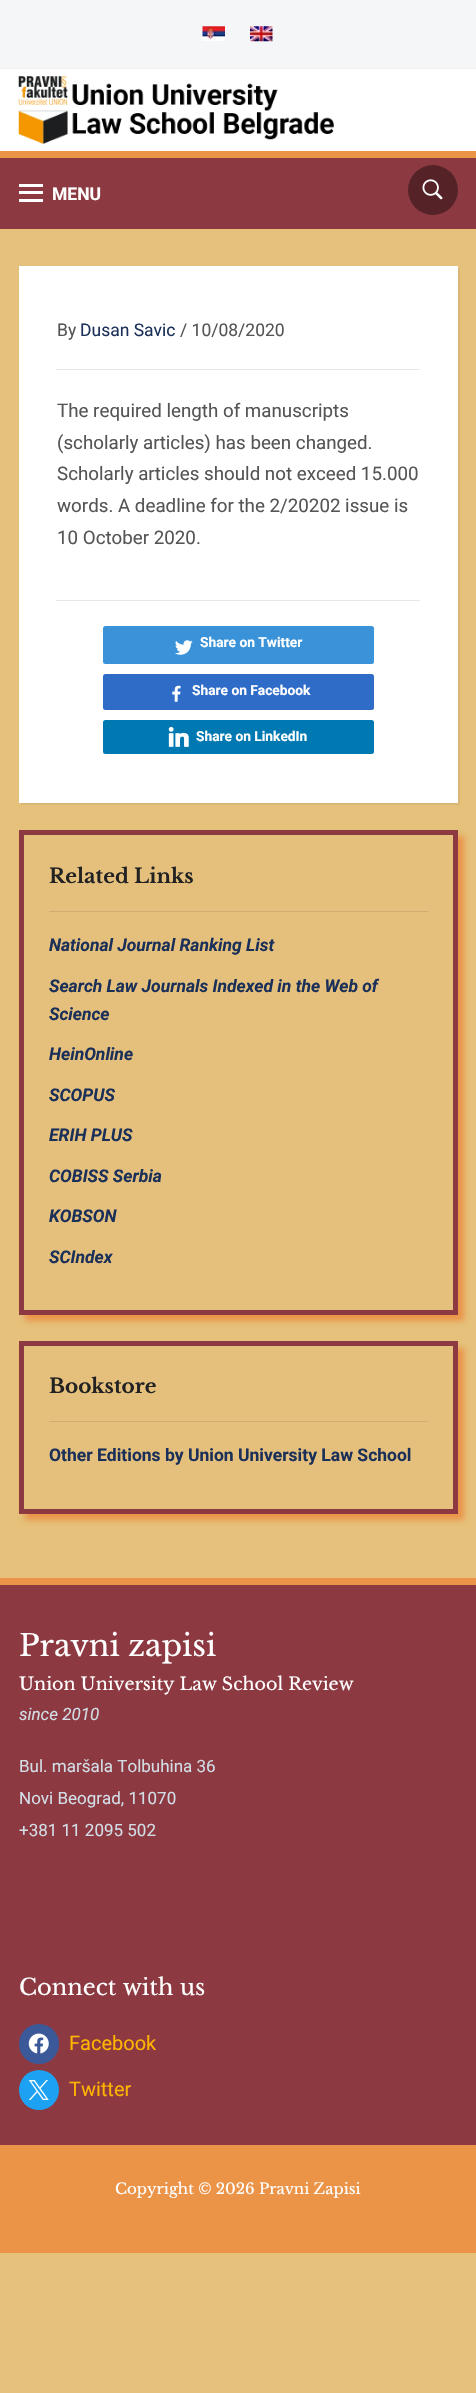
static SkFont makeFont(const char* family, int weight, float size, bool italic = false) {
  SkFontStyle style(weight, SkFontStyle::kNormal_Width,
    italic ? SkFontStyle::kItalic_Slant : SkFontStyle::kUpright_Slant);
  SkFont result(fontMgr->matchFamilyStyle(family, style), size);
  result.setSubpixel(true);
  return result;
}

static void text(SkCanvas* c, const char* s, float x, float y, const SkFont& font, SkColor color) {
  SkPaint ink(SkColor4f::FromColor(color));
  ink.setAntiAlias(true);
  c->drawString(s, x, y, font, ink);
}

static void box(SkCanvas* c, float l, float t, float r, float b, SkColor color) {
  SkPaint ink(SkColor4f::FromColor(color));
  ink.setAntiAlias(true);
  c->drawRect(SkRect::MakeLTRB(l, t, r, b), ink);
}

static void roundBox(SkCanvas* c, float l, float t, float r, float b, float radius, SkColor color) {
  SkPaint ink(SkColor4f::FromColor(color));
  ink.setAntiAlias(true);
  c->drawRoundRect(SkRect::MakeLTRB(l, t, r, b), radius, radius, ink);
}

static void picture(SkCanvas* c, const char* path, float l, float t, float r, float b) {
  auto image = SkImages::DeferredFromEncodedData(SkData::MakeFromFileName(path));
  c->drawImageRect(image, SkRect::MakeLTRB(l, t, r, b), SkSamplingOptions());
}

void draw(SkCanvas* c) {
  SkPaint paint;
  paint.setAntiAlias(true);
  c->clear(0xffe5c17b);
  box(c, 0, 69, 476, 151, 0xffffffff);
  box(c, 0, 0, 476, 68, 0xfff4f6f8);
  box(c, 0, 68, 476, 69, 0xfff0f0f0);
  picture(c, "img_01.png", 202, 26, 225, 41);
  picture(c, "img_02.png", 250, 26, 273, 42);
  picture(c, "img_03.png", 18, 76, 334, 144);
  box(c, 0, 158, 476, 229, 0xff8c3941);
  box(c, 0, 151, 476, 158, 0xffeb9347);
  box(c, 19, 184, 43, 187, 0xffffffff);
  box(c, 19, 191, 43, 194, 0xffffffff);
  box(c, 19, 199, 43, 202, 0xffffffff);
  SkFont face1 = makeFont("Roboto", 700, 17.5f);
  text(c, "MENU", 52, 200, face1, 0xffffffff);
  paint.setColor(0xff542227);
  c->drawCircle(433, 190, 25, paint);
  picture(c, "img_04.png", 422, 179, 443, 200);
  paint.setColor(0xffdab775);
  c->drawPath(SkPathBuilder().moveTo(21, 802).lineTo(21, 805).lineTo(460, 805).lineTo(460, 269).lineTo(458, 269).lineTo(458, 802).close().detach(), paint);
  box(c, 19, 266, 458, 803, 0xffffffff);
  SkFont face2 = makeFont("Roboto", 400, 17.5f);
  text(c, "By", 57, 336, face2, 0xff555555);
  text(c, "Dusan Savic", 80, 336, face2, 0xff1b3058);
  text(c, "/ 10/08/2020", 180, 336, face2, 0xff555555);
  box(c, 56, 369, 420, 370, 0xffe7e7e7);
  SkFont face3 = makeFont("Roboto", 400, 18.75f);
  text(c, "The required length of manuscripts", 57, 417, face3, 0xff555555);
  text(c, "(scholarly articles) has been changed.", 57, 449, face3, 0xff555555);
  text(c, "Scholarly articles should not exceed 15.000", 57, 480, face3, 0xff555555);
  text(c, "words. A deadline for the 2/20202 issue is", 57, 512, face3, 0xff555555);
  text(c, "10 October 2020.", 57, 544, face3, 0xff555555);
  box(c, 56, 600, 420, 601, 0xffe7e7e7);
  roundBox(c, 103, 626, 374, 664, 2.5f, 0xff3a93d8);
  picture(c, "img_05.png", 175, 640, 193, 655);
  SkFont face4 = makeFont("Roboto", 700, 13.75f);
  text(c, "Share on Twitter", 200, 647, face4, 0xffffffff);
  roundBox(c, 103, 674, 374, 710, 2.5f, 0xff2e6cc8);
  picture(c, "img_06.png", 172, 685, 181, 702);
  text(c, "Share on Facebook", 192, 695, face4, 0xffffffff);
  roundBox(c, 103, 720, 374, 754, 2.5f, 0xff0079b2);
  picture(c, "img_07.png", 168, 726, 189, 747);
  text(c, "Share on LinkedIn", 196, 741, face4, 0xffffffff);
  paint.setColor(0xffeb9347);
  paint.setMaskFilter(SkMaskFilter::MakeBlur(kNormal_SkBlurStyle, 3));
  c->drawRect(SkRect::MakeLTRB(25, 836, 464, 1321), paint);
  paint.setMaskFilter(nullptr);
  paint.setColor(0xffe5c07d);
  c->drawRect(SkRect::MakeLTRB(21.5f, 832.5f, 455.5f, 1312.5f), paint);
  paint.setStyle(SkPaint::kStroke_Style);
  paint.setStrokeWidth(5);
  paint.setColor(0xff8c3941);
  c->drawRect(SkRect::MakeLTRB(21.5f, 832.5f, 455.5f, 1312.5f), paint);
  box(c, 49, 911, 428, 912, 0xffcead71);
  SkFont face5 = makeFont("Libre Baskerville", 700, 20);
  text(c, "Related Links", 49, 883, face5, 0xff222222);
  SkFont face6 = makeFont("Roboto", 700, 17.5f, true);
  text(c, "National Journal Ranking List", 49, 951, face6, 0xff1b3058);
  text(c, "Search Law Journals Indexed in the Web of", 49, 992, face6, 0xff1b3058);
  text(c, "Science", 49, 1020, face6, 0xff1b3058);
  text(c, "HeinOnline", 49, 1060, face6, 0xff1b3058);
  text(c, "SCOPUS", 49, 1101, face6, 0xff1b3058);
  text(c, "ERIH PLUS", 49, 1141, face6, 0xff1b3058);
  text(c, "COBISS Serbia", 49, 1182, face6, 0xff1b3058);
  text(c, "KOBSON", 49, 1222, face6, 0xff1b3058);
  text(c, "SCIndex", 49, 1263, face6, 0xff1b3058);
  paint.setStyle(SkPaint::kFill_Style);
  paint.setColor(0xffeb9347);
  paint.setMaskFilter(SkMaskFilter::MakeBlur(kNormal_SkBlurStyle, 3));
  c->drawRect(SkRect::MakeLTRB(25, 1348, 464, 1520), paint);
  paint.setMaskFilter(nullptr);
  paint.setColor(0xffe5c07d);
  c->drawRect(SkRect::MakeLTRB(21.5f, 1343.5f, 455.5f, 1511.5f), paint);
  paint.setStyle(SkPaint::kStroke_Style);
  paint.setColor(0xff8c3941);
  c->drawRect(SkRect::MakeLTRB(21.5f, 1343.5f, 455.5f, 1511.5f), paint);
  box(c, 49, 1421, 428, 1422, 0xffcead71);
  text(c, "Bookstore", 49, 1393, face5, 0xff222222);
  text(c, "Other Editions by Union University Law School", 49, 1461, face1, 0xff1b3058);
  box(c, 0, 1585, 476, 2145, 0xff8c3941);
  box(c, 0, 1578, 476, 1585, 0xffeb9347);
  SkFont face7 = makeFont("Libre Baskerville", 400, 30);
  text(c, "Pravni zapisi", 19, 1656, face7, 0xffffffff);
  SkFont face8 = makeFont("Libre Baskerville", 400, 17.5f);
  text(c, "Union University Law School Review", 19, 1690, face8, 0xffffffff);
  SkFont face9 = makeFont("Roboto", 400, 17, true);
  text(c, "since 2010", 19, 1720, face9, 0xffd3dde6);
  SkFont face10 = makeFont("Roboto", 400, 17);
  text(c, "Bul. maršala Tolbuhina 36", 19, 1772, face10, 0xffd3dde6);
  text(c, "Novi Beograd, 11070", 19, 1804, face10, 0xffd3dde6);
  text(c, "+381 11 2095 502", 19, 1836, face10, 0xffd3dde6);
  SkFont face11 = makeFont("Libre Baskerville", 400, 22.5f);
  text(c, "Connect with us", 19, 1995, face11, 0xffffffff);
  paint.setStyle(SkPaint::kFill_Style);
  paint.setColor(0xff3b5998);
  c->drawCircle(39, 2044, 20, paint);
  picture(c, "img_08.png", 28, 2033, 49, 2054);
  SkFont face12 = makeFont("Roboto", 400, 20);
  text(c, "Facebook", 69, 2050, face12, 0xffffb400);
  paint.setColor(0xff1da1f2);
  c->drawCircle(39, 2090, 20, paint);
  picture(c, "img_09.png", 28, 2080, 49, 2100);
  text(c, "Twitter", 69, 2096, face12, 0xffffb400);
  box(c, 0, 2145, 476, 2253, 0xffeb9347);
  SkFont face13 = makeFont("Libre Baskerville", 400, 15);
  text(c, "Copyright © 2026 Pravni Zapisi", 115, 2194, face13, 0xffffffff);
}
